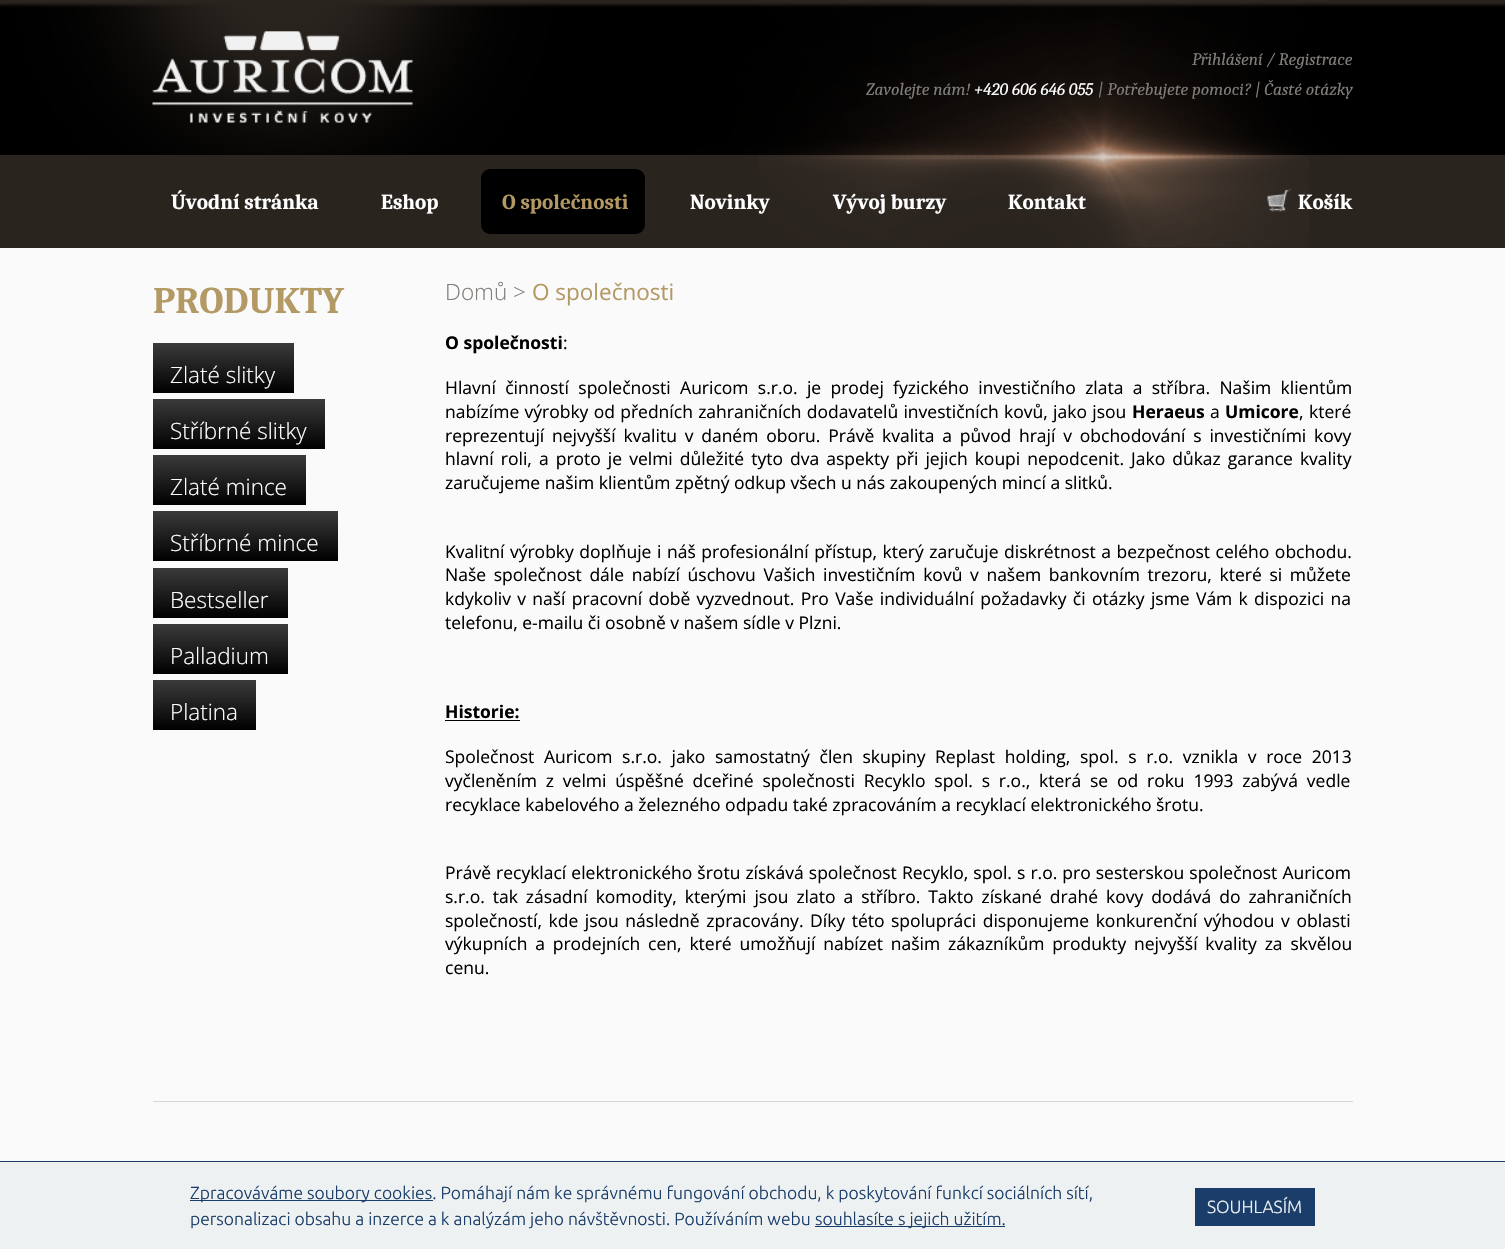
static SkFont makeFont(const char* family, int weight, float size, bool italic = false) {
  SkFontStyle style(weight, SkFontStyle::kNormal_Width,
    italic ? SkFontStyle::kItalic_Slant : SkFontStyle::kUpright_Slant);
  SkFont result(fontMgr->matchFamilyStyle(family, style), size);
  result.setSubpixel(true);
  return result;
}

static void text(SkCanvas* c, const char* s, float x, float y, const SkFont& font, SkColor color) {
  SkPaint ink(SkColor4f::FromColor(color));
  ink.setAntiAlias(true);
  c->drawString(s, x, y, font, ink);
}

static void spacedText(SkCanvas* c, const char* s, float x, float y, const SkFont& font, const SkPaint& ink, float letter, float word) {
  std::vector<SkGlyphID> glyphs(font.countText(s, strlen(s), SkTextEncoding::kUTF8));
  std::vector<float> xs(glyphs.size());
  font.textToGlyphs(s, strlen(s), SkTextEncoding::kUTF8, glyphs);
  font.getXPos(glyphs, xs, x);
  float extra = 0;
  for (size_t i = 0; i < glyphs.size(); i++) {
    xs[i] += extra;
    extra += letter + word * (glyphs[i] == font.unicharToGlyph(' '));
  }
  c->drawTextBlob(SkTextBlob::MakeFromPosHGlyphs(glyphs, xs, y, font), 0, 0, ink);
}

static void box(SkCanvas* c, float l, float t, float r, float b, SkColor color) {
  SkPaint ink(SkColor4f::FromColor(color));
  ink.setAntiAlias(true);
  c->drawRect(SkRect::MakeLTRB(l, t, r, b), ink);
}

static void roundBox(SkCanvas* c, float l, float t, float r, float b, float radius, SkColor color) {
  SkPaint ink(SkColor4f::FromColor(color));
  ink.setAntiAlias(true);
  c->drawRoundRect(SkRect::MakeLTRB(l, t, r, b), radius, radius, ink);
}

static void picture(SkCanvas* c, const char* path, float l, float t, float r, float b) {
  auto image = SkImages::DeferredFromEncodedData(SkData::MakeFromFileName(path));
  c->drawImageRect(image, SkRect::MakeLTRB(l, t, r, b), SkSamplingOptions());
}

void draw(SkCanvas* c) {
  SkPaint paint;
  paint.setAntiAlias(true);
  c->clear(0xfffafafa);
  picture(c, "img_01.png", 0, 0, 1505, 155);
  picture(c, "img_02.png", 152, 31, 413, 123);
  SkFont face1 = makeFont("Caladea", 400, 17.5f, true);
  text(c, "Přihlášení / Registrace", 1192, 65, face1, 0xff807c79);
  text(c, "Zavolejte nám!", 866, 95, face1, 0xff807c79);
  text(c, "+420 606 646 055", 974, 95, face1, 0xffffffff);
  text(c, "| Potřebujete pomoci? | Časté otázky", 1098, 95, face1, 0xff807c79);
  box(c, 0, 155, 1505, 248, 0xff2a241f);
  picture(c, "img_03.png", 759, 155, 1309, 248);
  roundBox(c, 481, 169, 645, 234, 9, 0xff000000);
  SkFont face2 = makeFont("Caladea", 700, 21.25f);
  text(c, "Úvodní stránka", 171, 209, face2, 0xffffffff);
  text(c, "Eshop", 381, 209, face2, 0xffffffff);
  text(c, "O společnosti", 502, 209, face2, 0xffb39964);
  text(c, "Novinky", 690, 209, face2, 0xffffffff);
  text(c, "Vývoj burzy", 833, 209, face2, 0xffffffff);
  text(c, "Kontakt", 1008, 209, face2, 0xffffffff);
  picture(c, "img_04.png", 1267, 188, 1292, 212);
  text(c, "Košík", 1298, 209, face2, 0xffffffff);
  SkFont face3 = makeFont("Caladea", 700, 37.5f);
  text(c, "PRODUKTY", 153, 313, face3, 0xffb39964);
  {
    const SkColor colors[] = {0xff3b3b3b, 0xff000000};
    const float stops[] = {0, 1};
    const SkPoint ends[] = {{223, 343}, {223, 393}};
    paint.setShader(SkGradientShader::MakeLinear(ends, colors, stops, 2, SkTileMode::kClamp));
    paint.setAlpha(255);
  }
  c->drawRect(SkRect::MakeLTRB(153, 343, 294, 393), paint);
  SkFont face4 = makeFont("Open Sans", 300, 22.5f);
  text(c, "Zlaté slitky", 170, 383, face4, 0xffffffff);
  {
    const SkColor colors[] = {0xff3b3b3b, 0xff000000};
    const float stops[] = {0, 1};
    const SkPoint ends[] = {{239, 399}, {239, 449}};
    paint.setShader(SkGradientShader::MakeLinear(ends, colors, stops, 2, SkTileMode::kClamp));
    paint.setAlpha(255);
  }
  c->drawRect(SkRect::MakeLTRB(153, 399, 325, 449), paint);
  text(c, "Stříbrné slitky", 170, 439, face4, 0xffffffff);
  {
    const SkColor colors[] = {0xff3b3b3b, 0xff000000};
    const float stops[] = {0, 1};
    const SkPoint ends[] = {{229, 455}, {229, 505}};
    paint.setShader(SkGradientShader::MakeLinear(ends, colors, stops, 2, SkTileMode::kClamp));
    paint.setAlpha(255);
  }
  c->drawRect(SkRect::MakeLTRB(153, 455, 306, 505), paint);
  text(c, "Zlaté mince", 170, 495, face4, 0xffffffff);
  {
    const SkColor colors[] = {0xff3b3b3b, 0xff000000};
    const float stops[] = {0, 1};
    const SkPoint ends[] = {{245, 511}, {245, 561}};
    paint.setShader(SkGradientShader::MakeLinear(ends, colors, stops, 2, SkTileMode::kClamp));
    paint.setAlpha(255);
  }
  c->drawRect(SkRect::MakeLTRB(153, 511, 338, 561), paint);
  text(c, "Stříbrné mince", 170, 551, face4, 0xffffffff);
  {
    const SkColor colors[] = {0xff3b3b3b, 0xff000000};
    const float stops[] = {0, 1};
    const SkPoint ends[] = {{220, 568}, {220, 618}};
    paint.setShader(SkGradientShader::MakeLinear(ends, colors, stops, 2, SkTileMode::kClamp));
    paint.setAlpha(255);
  }
  c->drawRect(SkRect::MakeLTRB(153, 568, 288, 618), paint);
  text(c, "Bestseller", 170, 608, face4, 0xffffffff);
  {
    const SkColor colors[] = {0xff3b3b3b, 0xff000000};
    const float stops[] = {0, 1};
    const SkPoint ends[] = {{220, 624}, {220, 674}};
    paint.setShader(SkGradientShader::MakeLinear(ends, colors, stops, 2, SkTileMode::kClamp));
    paint.setAlpha(255);
  }
  c->drawRect(SkRect::MakeLTRB(153, 624, 288, 674), paint);
  text(c, "Palladium", 170, 664, face4, 0xffffffff);
  {
    const SkColor colors[] = {0xff3b3b3b, 0xff000000};
    const float stops[] = {0, 1};
    const SkPoint ends[] = {{204, 680}, {204, 730}};
    paint.setShader(SkGradientShader::MakeLinear(ends, colors, stops, 2, SkTileMode::kClamp));
    paint.setAlpha(255);
  }
  c->drawRect(SkRect::MakeLTRB(153, 680, 256, 730), paint);
  text(c, "Platina", 170, 720, face4, 0xffffffff);
  text(c, "Domů >", 445, 300, face4, 0xff807c79);
  SkFont face5 = makeFont("Open Sans", 400, 22.5f);
  text(c, "O společnosti", 532, 300, face5, 0xffb39964);
  SkFont face6 = makeFont("Open Sans", 700, 17.5f);
  text(c, "O společnosti", 445, 349, face6, 0xff000000);
  SkFont face7 = makeFont("Open Sans", 400, 17.5f);
  text(c, ":", 563, 349, face7, 0xff000000);
  paint.setShader(nullptr);
  paint.setColor(0xff000000);
  spacedText(c, "Hlavní činností společnosti Auricom s.r.o. je prodej fyzického investičního zlata a stříbra. Našim klientům", 445, 394, face7, paint, 0, 4.75f);
  spacedText(c, "nabízíme výrobky od předních zahraničních dodavatelů investičních kovů, jako jsou", 445, 418, face7, paint, 0, 0.75f);
  text(c, "Heraeus", 1132, 418, face6, 0xff000000);
  text(c, "a", 1210, 418, face7, 0xff000000);
  text(c, "Umicore", 1225, 418, face6, 0xff000000);
  spacedText(c, ", které", 1299, 418, face7, paint, 0, 1);
  spacedText(c, "reprezentují nejvyšší kvalitu v daném oboru. Právě kvalita a původ hrají v obchodování s investičními kovy", 445, 442, face7, paint, 0, 3.25f);
  spacedText(c, "hlavní roli, a proto je velmi důležité tyto dva aspekty při jejich koupi nepodcenit. Jako důkaz garance kvality", 445, 465, face7, paint, 0, 2.5f);
  text(c, "zaručujeme našim klientům zpětný odkup všech u nás zakoupených mincí a slitků.", 445, 489, face7, 0xff000000);
  spacedText(c, "Kvalitní výrobky doplňuje i náš profesionální přístup, který zaručuje diskrétnost a bezpečnost celého obchodu.", 445, 558, face7, paint, 0, 1);
  spacedText(c, "Naše společnost dále nabízí úschovu Vašich investičním kovů v našem bankovním trezoru, které si můžete", 445, 581, face7, paint, 0, 3.1f);
  spacedText(c, "kdykoliv v naší pracovní době vyzvednout. Pro Vaše individuální požadavky či otázky jsme Vám k dispozici na", 445, 605, face7, paint, 0, 1.75f);
  text(c, "telefonu, e-mailu či osobně v našem sídle v Plzni.", 445, 629, face7, 0xff000000);
  text(c, "Historie:", 445, 718, face6, 0xff000000);
  box(c, 445, 720, 520, 721, 0xff000000);
  spacedText(c, "Společnost Auricom s.r.o. jako samostatný člen skupiny Replast holding, spol. s r.o. vznikla v roce 2013", 445, 763, face7, paint, 0, 5.1f);
  spacedText(c, "vyčleněním z velmi úspěšné dceřiné společnosti Recyklo spol. s r.o., která se od roku 1993 zabývá vedle", 445, 787, face7, paint, 0, 4.25f);
  text(c, "recyklace kabelového a železného odpadu také zpracováním a recyklací elektronického šrotu.", 445, 811, face7, 0xff000000);
  spacedText(c, "Právě recyklací elektronického šrotu získává společnost Recyklo, spol. s r.o. pro sesterskou společnost Auricom", 445, 879, face7, paint, 0, 0.5f);
  spacedText(c, "s.r.o. tak zásadní komodity, kterými jsou zlato a stříbro. Takto získané drahé kovy dodává do zahraničních", 445, 903, face7, paint, 0, 3.4f);
  spacedText(c, "společností, kde jsou následně zpracovány. Díky této spolupráci disponujeme konkurenční výhodou v oblasti", 445, 927, face7, paint, 0, 2);
  spacedText(c, "výkupních a prodejních cen, které umožňují nabízet našim zákazníkům produkty nejvyšší kvality za skvělou", 445, 950, face7, paint, 0, 3.25f);
  text(c, "cenu.", 445, 974, face7, 0xff000000);
  box(c, 153, 1101, 1353, 1102, 0xffd8d5d4);
  box(c, 0, 1162, 1505, 1249, 0xffeef1f2);
  box(c, 0, 1161, 1505, 1162, 0xff1a3d6a);
  box(c, 190, 1200, 433, 1201, 0xff1a3d6a);
  SkFont face8 = makeFont("Ubuntu", 300, 17.5f);
  text(c, "Zpracováváme soubory cookies. Pomáhají nám ke správnému fungování obchodu, k poskytování funkcí sociálních sítí,", 190, 1199, face8, 0xff1a3d6a);
  text(c, "personalizaci obsahu a inzerce a k analýzám jeho návštěvnosti. Používáním webu", 190, 1225, face8, 0xff1a3d6a);
  box(c, 815, 1226, 1005, 1227, 0xff1a3d6a);
  text(c, "souhlasíte s jejich užitím.", 815, 1225, face8, 0xff1a3d6a);
  box(c, 1195, 1188, 1315, 1226, 0xff1a3d6a);
  text(c, "SOUHLASÍM", 1207, 1213, face8, 0xffeef1f2);
}
